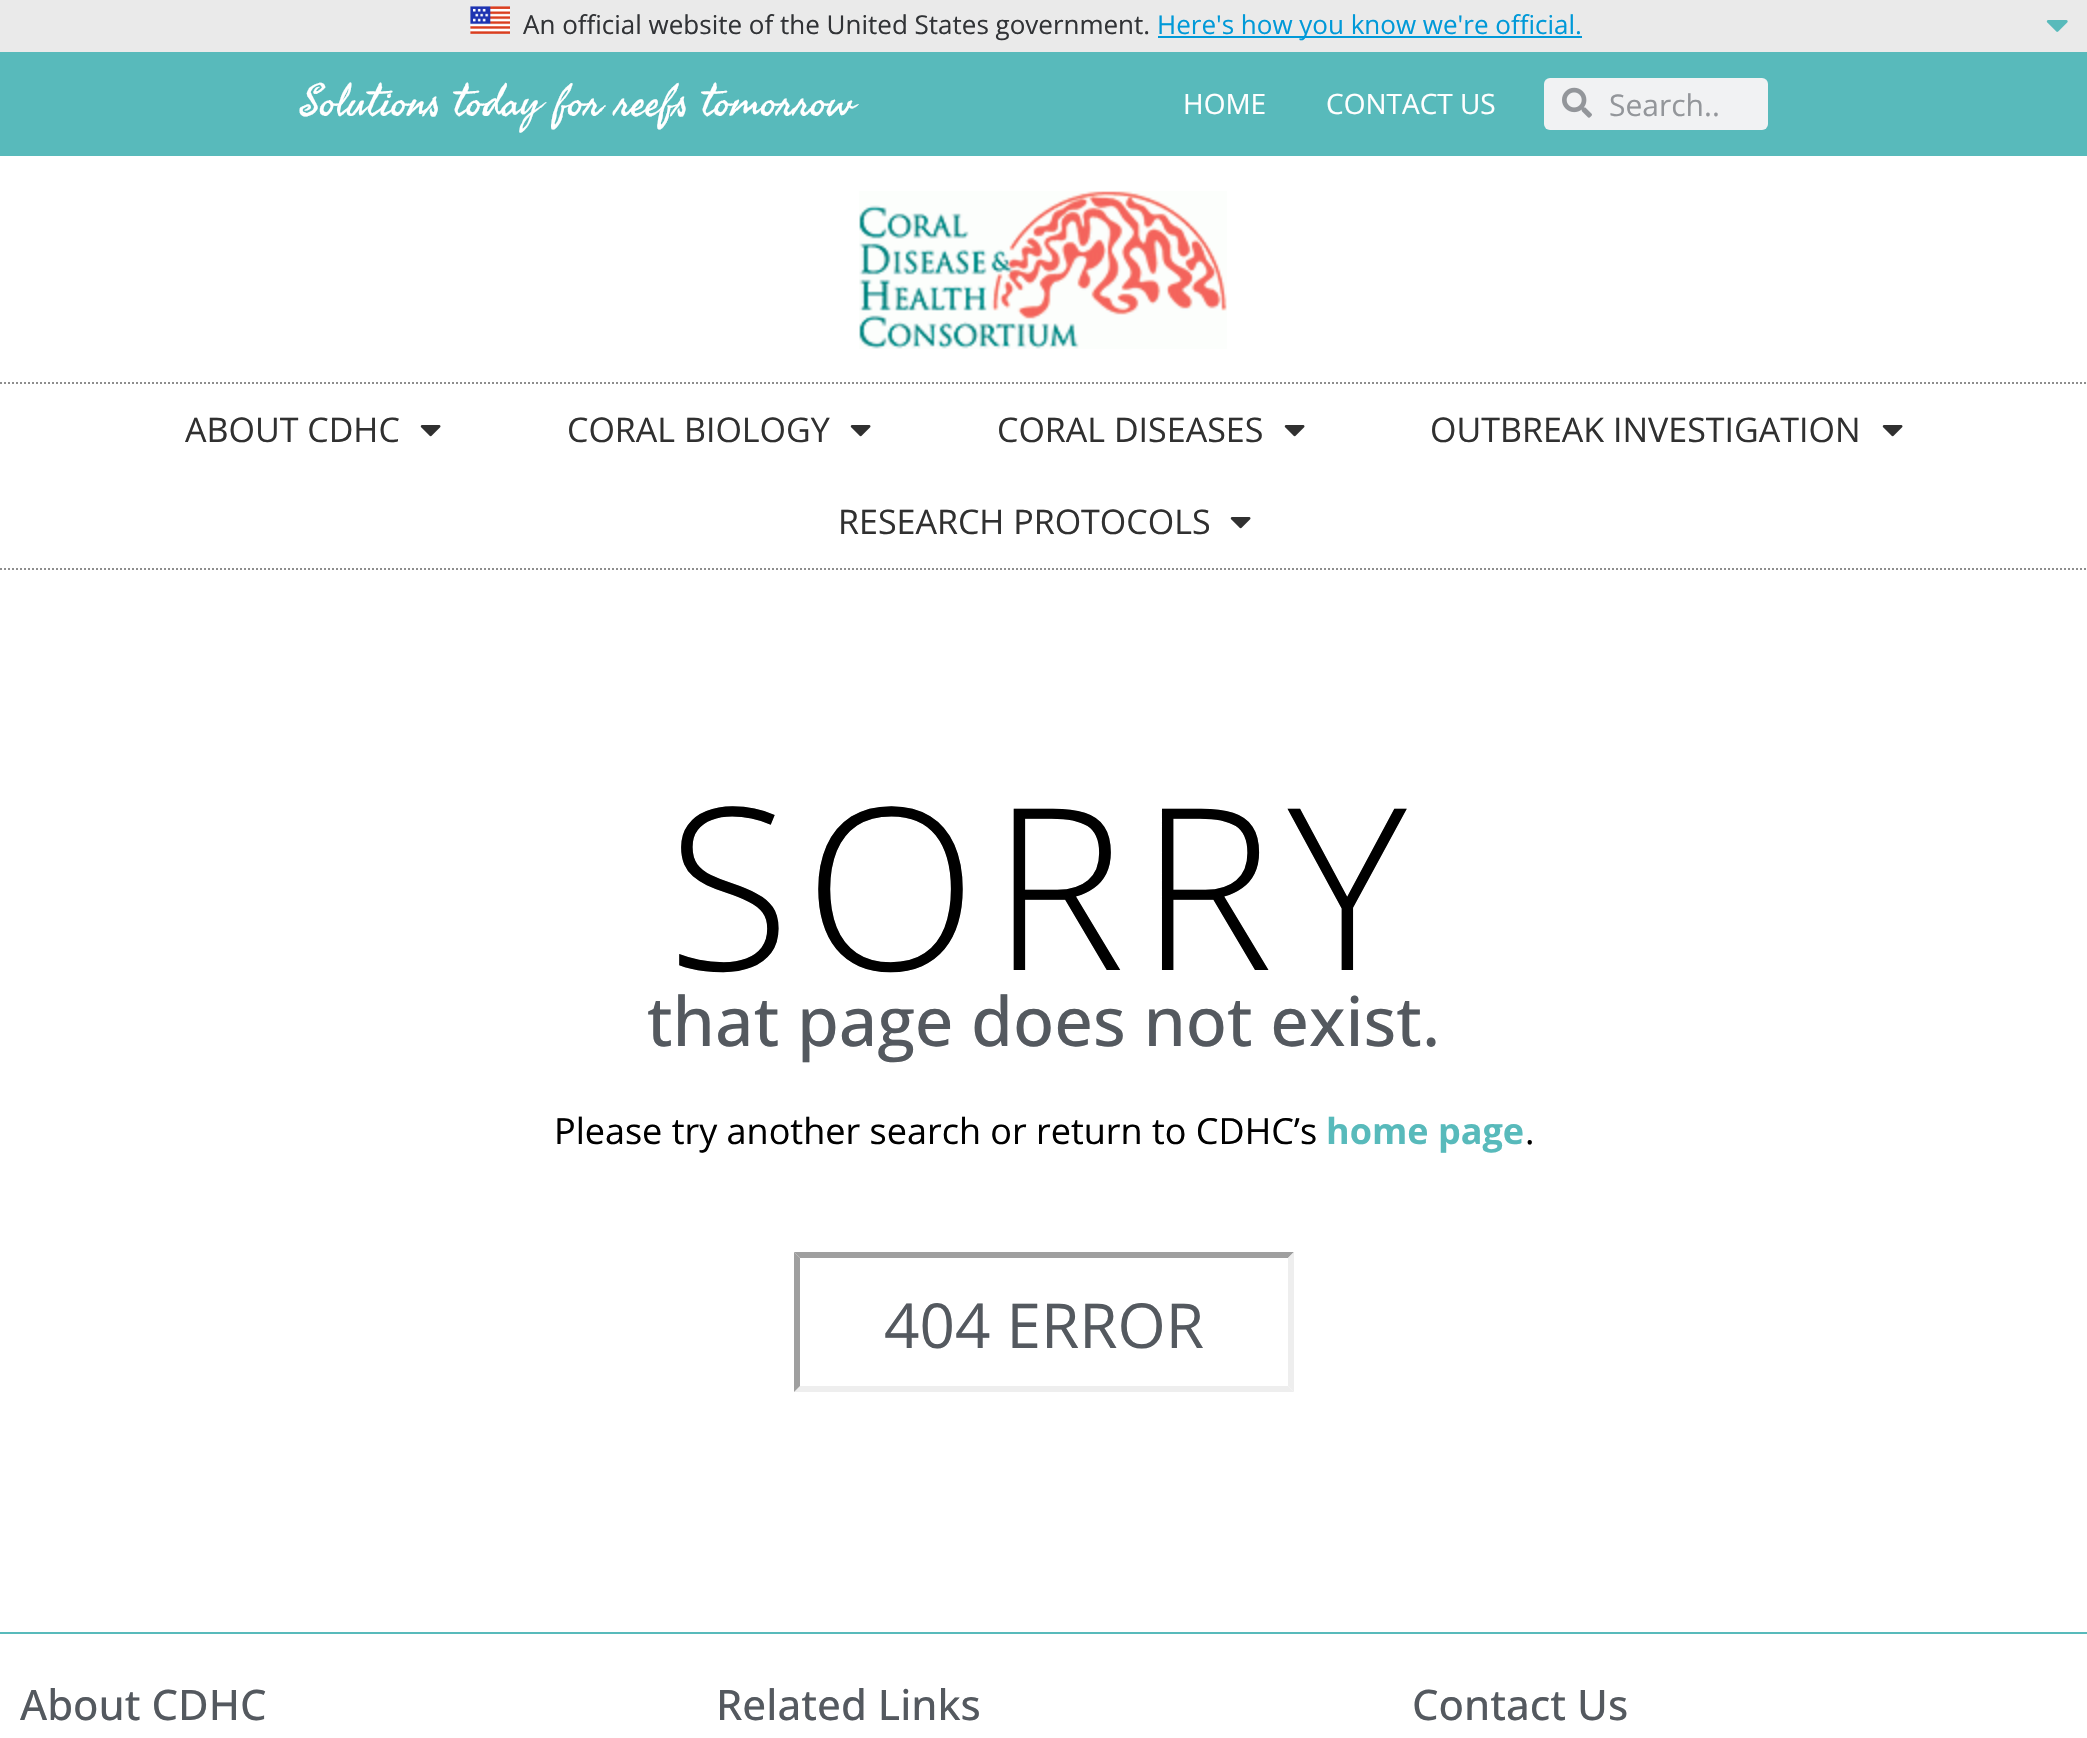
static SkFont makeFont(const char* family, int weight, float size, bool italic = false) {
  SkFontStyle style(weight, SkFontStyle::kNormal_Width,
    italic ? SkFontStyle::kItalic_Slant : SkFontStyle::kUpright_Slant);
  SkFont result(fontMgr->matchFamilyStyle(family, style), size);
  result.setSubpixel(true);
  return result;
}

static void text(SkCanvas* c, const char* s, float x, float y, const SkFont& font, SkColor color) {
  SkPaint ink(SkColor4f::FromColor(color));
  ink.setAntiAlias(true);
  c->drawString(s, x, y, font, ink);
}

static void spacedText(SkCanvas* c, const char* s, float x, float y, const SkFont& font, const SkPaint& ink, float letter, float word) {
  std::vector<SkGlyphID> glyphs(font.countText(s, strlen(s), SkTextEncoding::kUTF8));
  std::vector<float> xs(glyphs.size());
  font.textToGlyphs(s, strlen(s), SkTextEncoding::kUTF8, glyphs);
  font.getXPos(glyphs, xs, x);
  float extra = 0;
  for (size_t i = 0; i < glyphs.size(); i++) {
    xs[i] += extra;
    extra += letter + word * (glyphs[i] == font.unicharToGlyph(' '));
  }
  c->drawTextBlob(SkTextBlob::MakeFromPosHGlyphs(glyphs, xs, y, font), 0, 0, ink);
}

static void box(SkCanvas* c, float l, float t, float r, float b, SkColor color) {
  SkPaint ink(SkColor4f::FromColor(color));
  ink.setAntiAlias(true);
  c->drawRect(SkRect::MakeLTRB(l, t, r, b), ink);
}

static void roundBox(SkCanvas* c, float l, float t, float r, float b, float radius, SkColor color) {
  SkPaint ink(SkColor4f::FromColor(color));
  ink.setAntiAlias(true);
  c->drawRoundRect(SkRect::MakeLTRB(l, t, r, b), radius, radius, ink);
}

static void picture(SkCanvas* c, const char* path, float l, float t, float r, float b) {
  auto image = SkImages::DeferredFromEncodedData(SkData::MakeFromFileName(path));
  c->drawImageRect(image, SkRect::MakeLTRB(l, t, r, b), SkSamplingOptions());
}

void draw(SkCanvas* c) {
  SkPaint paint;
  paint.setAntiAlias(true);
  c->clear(0xffffffff);
  box(c, 0, 0, 2087, 52, 0xffeaeaea);
  picture(c, "img_01.png", 470, 6, 510, 34);
  SkFont face1 = makeFont("Open Sans", 400, 26);
  text(c, "An official website of the United States government.", 523, 34, face1, 0xff313336);
  box(c, 1158, 36, 1582, 38, 0xff0099d8);
  text(c, "Here's how you know we're official.", 1157, 34, face1, 0xff0099d8);
  picture(c, "img_02.png", 2046, 20, 2068, 32);
  box(c, 0, 52, 2087, 156, 0xff58babb);
  SkFont face2 = makeFont("Seaweed Script", 400, 44);
  text(c, "Solutions today for reefs tomorrow", 300, 115, face2, 0xffffffff);
  SkFont face3 = makeFont("Open Sans", 400, 28);
  text(c, "HOME", 1183, 114, face3, 0xffffffff);
  text(c, "CONTACT US", 1326, 114, face3, 0xffffffff);
  roundBox(c, 1544, 78, 1768, 130, 6, 0xfff1f2f3);
  picture(c, "img_03.png", 1562, 87, 1592, 118);
  SkFont face4 = makeFont("Open Sans", 400, 30);
  text(c, "Search..", 1609, 116, face4, 0xff93969a);
  picture(c, "img_04.png", 859, 191, 1227, 349);
  paint.setStyle(SkPaint::kStroke_Style);
  paint.setStrokeWidth(2);
  paint.setColor(0xff8e8e8e);
  paint.setPathEffect(SkDashPathEffect::Make({{2, 2}}, 0));
  c->drawPath(SkPathBuilder().moveTo(0, 383).lineTo(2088, 383).detach(), paint);
  paint.setPathEffect(nullptr);
  paint.setPathEffect(SkDashPathEffect::Make({{2, 2}}, 0));
  c->drawPath(SkPathBuilder().moveTo(0, 569).lineTo(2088, 569).detach(), paint);
  paint.setPathEffect(nullptr);
  SkFont face5 = makeFont("Open Sans", 400, 34);
  text(c, "ABOUT CDHC", 185, 442, face5, 0xff303030);
  picture(c, "img_05.png", 420, 425, 441, 437);
  text(c, "CORAL BIOLOGY", 567, 442, face5, 0xff303030);
  picture(c, "img_05.png", 850, 425, 871, 437);
  text(c, "CORAL DISEASES", 997, 442, face5, 0xff303030);
  picture(c, "img_05.png", 1284, 425, 1305, 437);
  text(c, "OUTBREAK INVESTIGATION", 1430, 442, face5, 0xff303030);
  picture(c, "img_05.png", 1882, 425, 1903, 437);
  text(c, "RESEARCH PROTOCOLS", 838, 534, face5, 0xff303030);
  picture(c, "img_05.png", 1230, 517, 1251, 529);
  SkFont face6 = makeFont("Open Sans", 300, 226);
  paint.setStyle(SkPaint::kFill_Style);
  paint.setColor(0xff000000);
  spacedText(c, "SORRY", 667, 970, face6, paint, 14, 0);
  SkFont face7 = makeFont("Open Sans", 500, 68);
  text(c, "that page does not exist.", 647, 1046, face7, 0xff54595f);
  SkFont face8 = makeFont("Open Sans", 400, 36);
  text(c, "Please try another search or return to CDHC’s", 554, 1144, face8, 0xff000000);
  SkFont face9 = makeFont("Open Sans", 700, 36);
  text(c, "home page", 1326, 1144, face9, 0xff58babb);
  text(c, ".", 1525, 1144, face8, 0xff000000);
  paint.setColor(0xff9f9f9f);
  c->drawPath(SkPathBuilder().moveTo(794, 1252).lineTo(1294, 1252).lineTo(1288, 1258).lineTo(800, 1258).close().detach(), paint);
  paint.setColor(0xffeeeeee);
  c->drawPath(SkPathBuilder().moveTo(1294, 1252).lineTo(1294, 1392).lineTo(1288, 1386).lineTo(1288, 1258).close().detach(), paint);
  c->drawPath(SkPathBuilder().moveTo(1294, 1392).lineTo(794, 1392).lineTo(800, 1386).lineTo(1288, 1386).close().detach(), paint);
  paint.setColor(0xff9f9f9f);
  c->drawPath(SkPathBuilder().moveTo(794, 1392).lineTo(794, 1252).lineTo(800, 1258).lineTo(800, 1386).close().detach(), paint);
  SkFont face10 = makeFont("Open Sans", 400, 62);
  text(c, "404 ERROR", 884, 1348, face10, 0xff54595f);
  box(c, 0, 1632, 2087, 1634, 0xff58babb);
  SkFont face11 = makeFont("Open Sans", 500, 42);
  text(c, "About CDHC", 20, 1720, face11, 0xff54595f);
  text(c, "Related Links", 716, 1720, face11, 0xff54595f);
  text(c, "Contact Us", 1412, 1720, face11, 0xff54595f);
}
